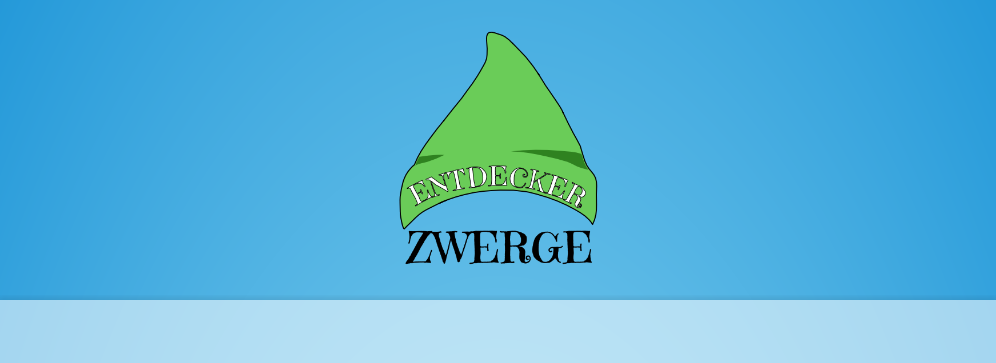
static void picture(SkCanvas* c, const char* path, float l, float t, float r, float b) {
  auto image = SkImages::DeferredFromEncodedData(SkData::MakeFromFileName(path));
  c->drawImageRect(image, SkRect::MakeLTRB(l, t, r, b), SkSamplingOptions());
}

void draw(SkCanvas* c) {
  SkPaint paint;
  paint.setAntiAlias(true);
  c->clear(0xffffffff);
  {
    const SkColor colors[] = {0xff7fceee, 0xff2499d9};
    const float stops[] = {0.25f, 1};
    SkMatrix m = SkMatrix::Translate(498, 1078).preScale(704, 1525);
    paint.setShader(SkGradientShader::MakeRadial({0, 0}, 1, colors, stops, 2, SkTileMode::kClamp, 0, &m));
    paint.setAlpha(255);
  }
  c->drawRect(SkRect::MakeLTRB(0, 0, 996, 300), paint);
  {
    const SkColor colors[] = {0xffc5e9f7, 0xff9cd1ee};
    const float stops[] = {0.25f, 1};
    SkMatrix m = SkMatrix::Translate(498, 1078).preScale(704, 1525);
    paint.setShader(SkGradientShader::MakeRadial({0, 0}, 1, colors, stops, 2, SkTileMode::kClamp, 0, &m));
    paint.setAlpha(255);
  }
  c->drawRect(SkRect::MakeLTRB(0, 300, 996, 363), paint);
  picture(c, "img_01.png", 399, 31, 598, 265);
  c->save();
  c->clipRect(SkRect::MakeLTRB(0, 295, 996, 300));
  paint.setShader(nullptr);
  paint.setColor(0x1a000000);
  paint.setMaskFilter(SkMaskFilter::MakeBlur(kNormal_SkBlurStyle, 3));
  c->drawRect(SkRect::MakeLTRB(-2, 298, 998, 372), paint);
  paint.setMaskFilter(nullptr);
  c->restore();
}
